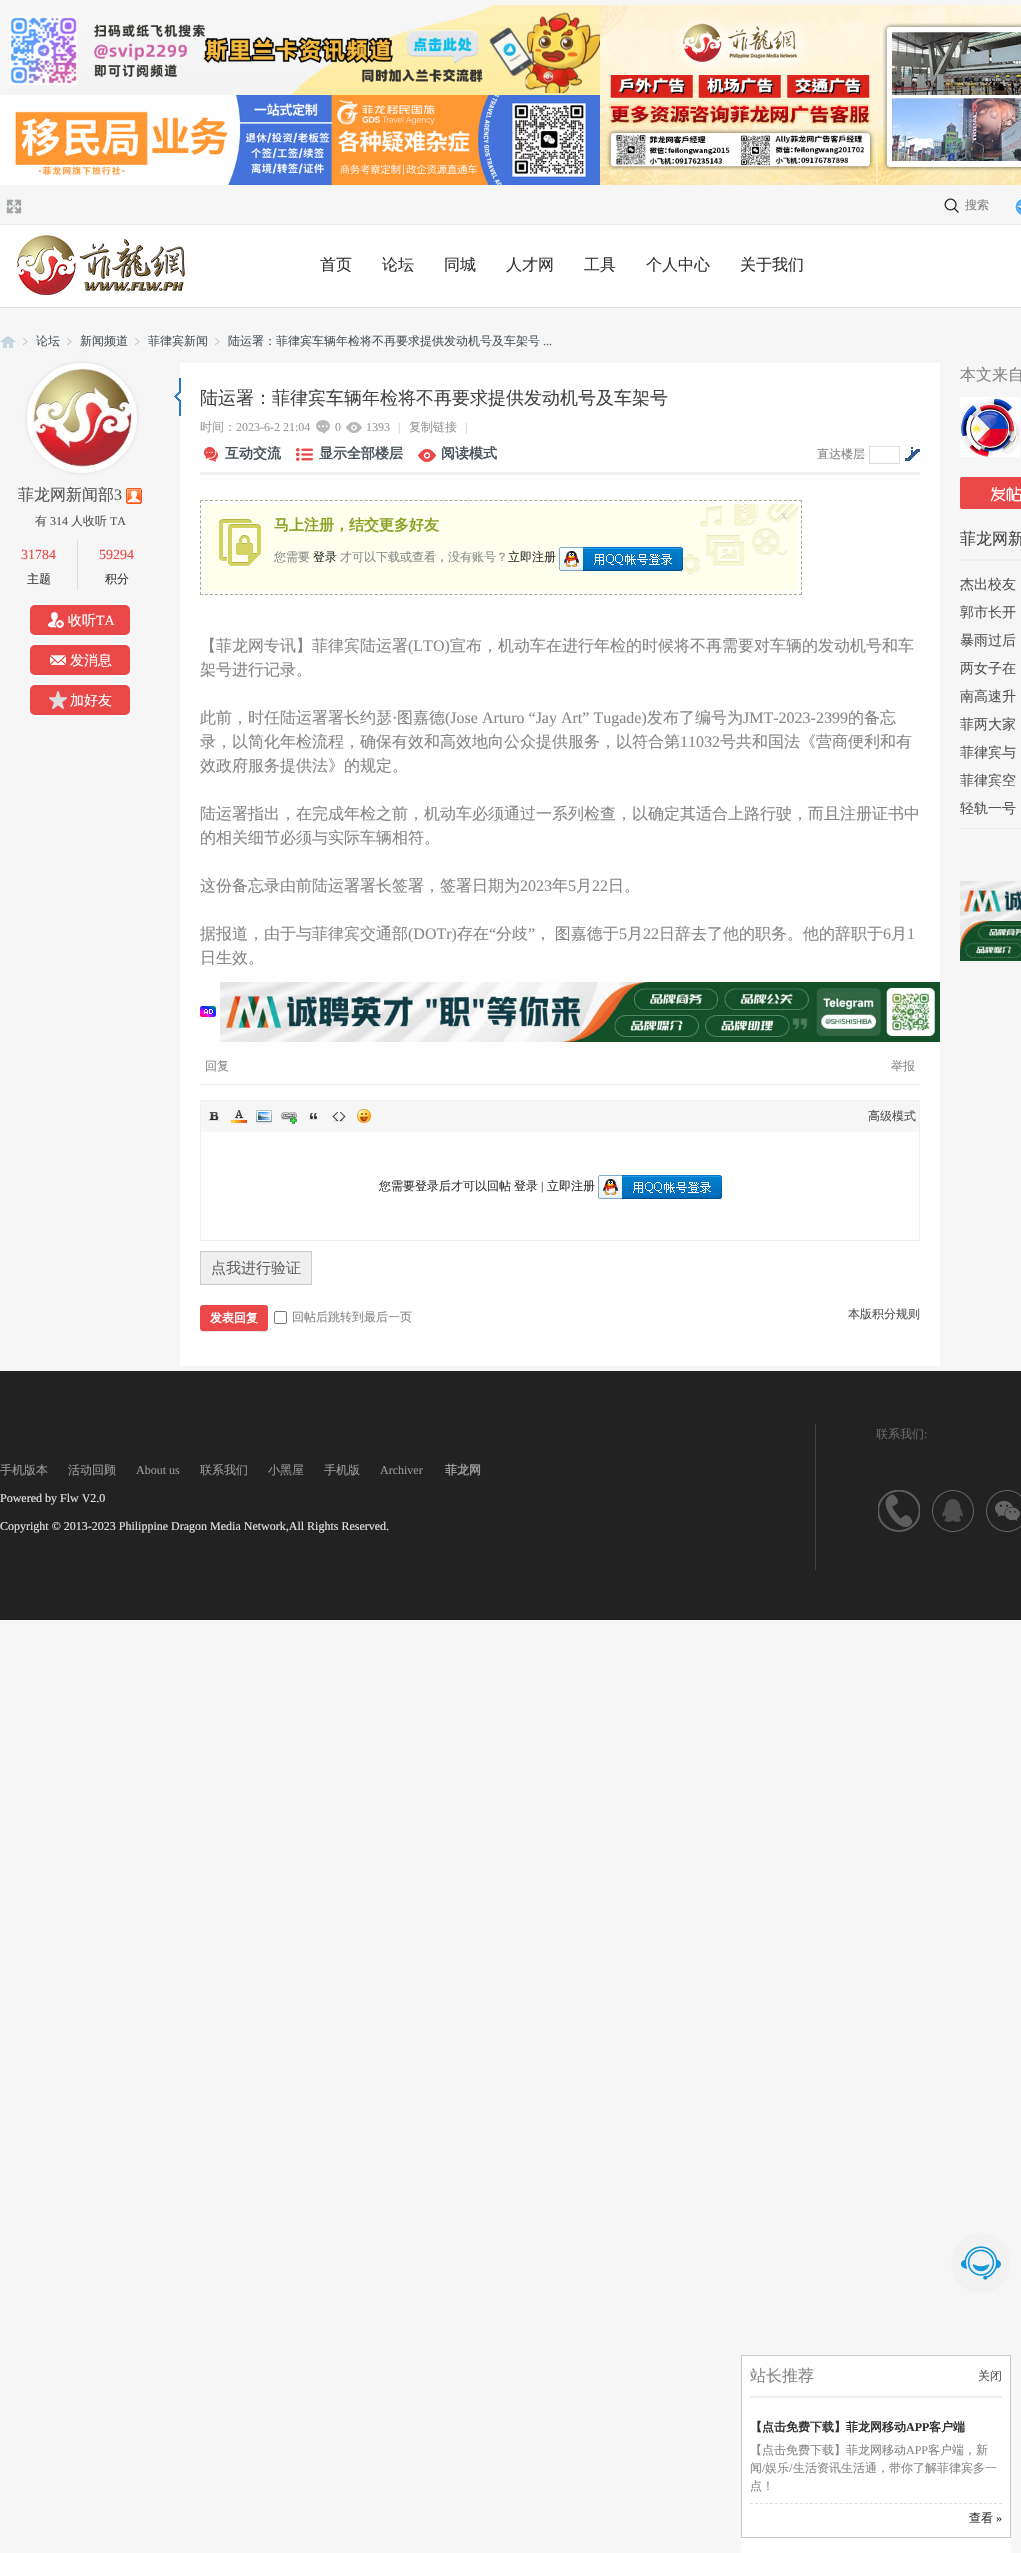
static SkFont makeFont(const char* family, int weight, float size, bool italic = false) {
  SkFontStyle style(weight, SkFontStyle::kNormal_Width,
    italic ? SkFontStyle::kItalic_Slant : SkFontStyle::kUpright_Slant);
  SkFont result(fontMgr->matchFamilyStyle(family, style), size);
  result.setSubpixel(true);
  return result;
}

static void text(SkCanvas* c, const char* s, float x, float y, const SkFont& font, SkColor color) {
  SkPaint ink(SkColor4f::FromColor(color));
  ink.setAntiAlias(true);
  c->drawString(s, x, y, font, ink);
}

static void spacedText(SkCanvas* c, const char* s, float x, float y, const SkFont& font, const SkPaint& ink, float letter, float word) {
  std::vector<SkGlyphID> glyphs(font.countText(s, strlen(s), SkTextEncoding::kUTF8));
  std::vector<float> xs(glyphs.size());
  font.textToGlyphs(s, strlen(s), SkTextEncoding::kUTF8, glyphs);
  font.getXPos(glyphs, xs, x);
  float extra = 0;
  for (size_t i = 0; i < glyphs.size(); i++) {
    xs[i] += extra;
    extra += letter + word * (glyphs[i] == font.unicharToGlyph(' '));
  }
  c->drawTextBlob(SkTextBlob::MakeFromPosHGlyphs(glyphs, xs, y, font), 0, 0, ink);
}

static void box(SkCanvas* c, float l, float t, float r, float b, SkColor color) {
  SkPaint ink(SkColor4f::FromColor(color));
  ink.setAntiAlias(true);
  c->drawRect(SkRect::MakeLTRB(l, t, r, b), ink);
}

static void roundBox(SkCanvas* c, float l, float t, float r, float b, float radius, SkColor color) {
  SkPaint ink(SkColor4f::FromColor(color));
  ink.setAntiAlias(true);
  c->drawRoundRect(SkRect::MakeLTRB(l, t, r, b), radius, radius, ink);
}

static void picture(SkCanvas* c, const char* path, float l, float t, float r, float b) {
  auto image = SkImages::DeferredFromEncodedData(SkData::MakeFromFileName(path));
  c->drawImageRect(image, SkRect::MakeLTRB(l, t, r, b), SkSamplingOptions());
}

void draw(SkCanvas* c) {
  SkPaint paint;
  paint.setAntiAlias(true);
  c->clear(0xfff6f6f6);
  c->save();
  c->clipRect(SkRect::MakeLTRB(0, 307, 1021, 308));
  paint.setColor(0x1a000000);
  paint.setMaskFilter(SkMaskFilter::MakeBlur(kNormal_SkBlurStyle, 0.5f));
  c->drawRect(SkRect::MakeLTRB(0, 1, 1021, 308), paint);
  paint.setMaskFilter(nullptr);
  c->restore();
  picture(c, "img_01.png", 9, 5, 600, 95);
  picture(c, "img_02.png", 600, 5, 1021, 95);
  picture(c, "img_03.png", 0, 95, 600, 185);
  picture(c, "img_04.png", 600, 95, 1021, 185);
  box(c, 0, 224, 1021, 225, 0xffeeeeee);
  picture(c, "img_05.png", 6, 199, 22, 214);
  picture(c, "img_06.png", 944, 198, 959, 213);
  SkFont face1 = makeFont("WenQuanYi Zen Hei", 500, 12);
  text(c, "搜索", 965, 209, face1, 0xff878787);
  picture(c, "img_07.png", 1014, 198, 1021, 216);
  box(c, 0, 225, 1021, 307, 0xffffffff);
  picture(c, "img_08.png", 17, 235, 185, 295);
  SkFont face2 = makeFont("WenQuanYi Zen Hei", 500, 16);
  text(c, "首页", 320, 270, face2, 0xff333333);
  text(c, "论坛", 382, 270, face2, 0xff333333);
  text(c, "同城", 444, 270, face2, 0xff333333);
  text(c, "人才网", 506, 270, face2, 0xff333333);
  text(c, "工具", 584, 270, face2, 0xff333333);
  text(c, "个人中心", 646, 270, face2, 0xff333333);
  text(c, "关于我们", 740, 270, face2, 0xff333333);
  picture(c, "img_09.png", 0, 336, 16, 348);
  picture(c, "img_10.png", 23, 338, 28, 346);
  text(c, "论坛", 36, 345, face1, 0xff4b565c);
  picture(c, "img_10.png", 67, 338, 72, 346);
  text(c, "新闻频道", 80, 345, face1, 0xff4b565c);
  picture(c, "img_10.png", 135, 338, 140, 346);
  text(c, "菲律宾新闻", 148, 345, face1, 0xff4b565c);
  picture(c, "img_10.png", 215, 338, 220, 346);
  text(c, "陆运署：菲律宾车辆年检将不再要求提供发动机号及车架号", 228, 345, face1, 0xff4b565c);
  SkFont face3 = makeFont("Liberation Serif", 400, 12);
  text(c, "...", 543, 345, face3, 0xff4b565c);
  paint.setColor(0x99c8c8c8);
  paint.setMaskFilter(SkMaskFilter::MakeBlur(kNormal_SkBlurStyle, 2));
  c->drawRoundRect(SkRect::MakeLTRB(27, 363, 137, 473), 55, 55, paint);
  paint.setMaskFilter(nullptr);
  paint.setColor(0xffffffff);
  c->drawCircle(82, 418, 53.5f, paint);
  paint.setStyle(SkPaint::kStroke_Style);
  paint.setStrokeWidth(3);
  c->drawCircle(82, 418, 53.5f, paint);
  picture(c, "img_11.png", 32, 368, 132, 468);
  text(c, "菲龙网新闻部", 18, 500, face2, 0xff555555);
  SkFont face4 = makeFont("Liberation Serif", 400, 16);
  text(c, "3", 114, 500, face4, 0xff555555);
  picture(c, "img_12.png", 126, 488, 142, 504);
  text(c, "有", 35, 525, face1, 0xff555555);
  text(c, "314", 50, 525, face3, 0xff555555);
  text(c, "人收听", 71, 525, face1, 0xff555555);
  text(c, "TA", 110, 525, face3, 0xff555555);
  box(c, 77, 540, 78, 590, 0xffdcdcdc);
  SkFont face5 = makeFont("Liberation Serif", 400, 14);
  text(c, "31784", 21, 559, face5, 0xffea4748);
  text(c, "主题", 27, 583, face1, 0xff3a3a3a);
  text(c, "59294", 99, 559, face5, 0xffea4748);
  text(c, "积分", 105, 583, face1, 0xff3a3a3a);
  roundBox(c, 30, 605, 130, 635, 5, 0xffea4748);
  picture(c, "img_13.png", 48, 612, 64, 628);
  SkFont face6 = makeFont("WenQuanYi Zen Hei", 500, 14);
  text(c, "收听", 68, 625, face6, 0xffffffff);
  text(c, "TA", 96, 625, face5, 0xffffffff);
  roundBox(c, 30, 645, 130, 675, 5, 0xffea4748);
  picture(c, "img_14.png", 50, 655, 66, 665);
  text(c, "发消息", 70, 665, face6, 0xffffffff);
  roundBox(c, 30, 685, 130, 715, 5, 0xffea4748);
  picture(c, "img_15.png", 49, 691, 67, 709);
  text(c, "加好友", 70, 705, face6, 0xffffffff);
  box(c, 180, 363, 940, 1366, 0xffffffff);
  picture(c, "img_16.png", 174, 378, 181, 416);
  SkFont face7 = makeFont("WenQuanYi Zen Hei", 500, 18);
  text(c, "陆运署：菲律宾车辆年检将不再要求提供发动机号及车架号", 200, 404, face7, 0xff444444);
  text(c, "时间：", 200, 431, face1, 0xff999999);
  text(c, "2023-6-2 21:04", 236, 431, face3, 0xff999999);
  picture(c, "img_17.png", 316, 420, 330, 434);
  text(c, "0", 335, 431, face3, 0xff999999);
  picture(c, "img_18.png", 346, 422, 362, 433);
  text(c, "1393", 366, 431, face3, 0xff999999);
  text(c, "|", 398, 431, face3, 0xffcccccc);
  text(c, "复制链接", 409, 431, face1, 0xff999999);
  text(c, "|", 465, 431, face3, 0xffcccccc);
  box(c, 200, 472, 920, 475, 0xfff2f2f2);
  picture(c, "img_19.png", 204, 447, 218, 462);
  SkFont face8 = makeFont("WenQuanYi Zen Hei", 700, 14);
  text(c, "互动交流", 225, 458, face8, 0xff4b565c);
  picture(c, "img_20.png", 296, 448, 313, 461);
  text(c, "显示全部楼层", 319, 458, face8, 0xff4b565c);
  picture(c, "img_21.png", 418, 449, 436, 462);
  text(c, "阅读模式", 441, 458, face8, 0xff4b565c);
  text(c, "直达楼层", 817, 458, face1, 0xff878787);
  paint.setStrokeWidth(1);
  paint.setColor(0xffdddddd);
  c->drawRect(SkRect::MakeLTRB(869.5f, 446.5f, 899.5f, 463.5f), paint);
  picture(c, "img_22.png", 905, 447, 920, 461);
  box(c, 200, 500, 802, 595, 0xffffffee);
  picture(c, "img_23.png", 681, 504, 798, 576);
  paint.setColor(0xffaaaa92);
  paint.setPathEffect(SkDashPathEffect::Make({{3, 1.99f}}, 0));
  c->drawPath(SkPathBuilder().moveTo(200, 500.5f).lineTo(802, 500.5f).detach(), paint);
  paint.setPathEffect(nullptr);
  paint.setPathEffect(SkDashPathEffect::Make({{3, 2.11f}}, 0));
  c->drawPath(SkPathBuilder().moveTo(801.5f, 500).lineTo(801.5f, 595).detach(), paint);
  paint.setPathEffect(nullptr);
  paint.setPathEffect(SkDashPathEffect::Make({{3, 1.99f}}, 0));
  c->drawPath(SkPathBuilder().moveTo(200, 594.5f).lineTo(802, 594.5f).detach(), paint);
  paint.setPathEffect(nullptr);
  paint.setPathEffect(SkDashPathEffect::Make({{3, 2.11f}}, 0));
  c->drawPath(SkPathBuilder().moveTo(200.5f, 500).lineTo(200.5f, 595).detach(), paint);
  paint.setPathEffect(nullptr);
  picture(c, "img_24.png", 219, 519, 261, 567);
  paint.setStrokeWidth(3);
  paint.setColor(0xffffffff);
  c->drawRect(SkRect::MakeLTRB(202.5f, 502.5f, 799.5f, 592.5f), paint);
  text(c, "x", 781, 519, face3, 0xffcccccc);
  SkFont face9 = makeFont("WenQuanYi Zen Hei", 700, 15);
  text(c, "马上注册，结交更多好友", 274, 530, face9, 0xff8ca226);
  text(c, "您需要", 274, 561, face1, 0xff878787);
  text(c, "登录", 313, 561, face1, 0xff333333);
  text(c, "才可以下载或查看，没有账号？", 340, 561, face1, 0xff878787);
  text(c, "立即注册", 508, 561, face1, 0xff333333);
  picture(c, "img_25.png", 559, 547, 683, 571);
  text(c, "【菲龙网专讯】菲律宾陆运署", 200, 651, face2, 0xff878787);
  text(c, "(LTO)", 408, 651, face4, 0xff878787);
  text(c, "宣布，机动车在进行年检的时候将不再需要对车辆的发动机号和车", 450, 651, face2, 0xff878787);
  text(c, "架号进行记录。", 200, 675, face2, 0xff878787);
  text(c, "此前，时任陆运署署长约瑟", 200, 723, face2, 0xff878787);
  text(c, "·", 392, 723, face4, 0xff878787);
  text(c, "图嘉德", 397, 723, face2, 0xff878787);
  text(c, "(Jose Arturo “Jay Art” Tugade)", 445, 723, face4, 0xff878787);
  text(c, "发布了编号为", 647, 723, face2, 0xff878787);
  text(c, "JMT-2023-2399", 743, 723, face4, 0xff878787);
  text(c, "的备忘", 848, 723, face2, 0xff878787);
  text(c, "录，以简化年检流程，确保有效和高效地向公众提供服务，以符合第", 200, 747, face2, 0xff878787);
  text(c, "11032", 680, 747, face4, 0xff878787);
  text(c, "号共和国法《营商便利和有", 720, 747, face2, 0xff878787);
  text(c, "效政府服务提供法》的规定。", 200, 771, face2, 0xff878787);
  text(c, "陆运署指出，在完成年检之前，机动车必须通过一系列检查，以确定其适合上路行驶，而且注册证书中", 200, 819, face2, 0xff878787);
  text(c, "的相关细节必须与实际车辆相符。", 200, 843, face2, 0xff878787);
  text(c, "这份备忘录由前陆运署署长签署，签署日期为", 200, 891, face2, 0xff878787);
  text(c, "2023", 520, 891, face4, 0xff878787);
  text(c, "年", 552, 891, face2, 0xff878787);
  text(c, "5", 568, 891, face4, 0xff878787);
  text(c, "月", 576, 891, face2, 0xff878787);
  text(c, "22", 592, 891, face4, 0xff878787);
  text(c, "日。", 608, 891, face2, 0xff878787);
  text(c, "据报道，由于与菲律宾交通部", 200, 939, face2, 0xff878787);
  text(c, "(DOTr)", 408, 939, face4, 0xff878787);
  text(c, "存在", 457, 939, face2, 0xff878787);
  text(c, "“", 489, 939, face4, 0xff878787);
  text(c, "分歧", 496, 939, face2, 0xff878787);
  text(c, "”", 528, 939, face4, 0xff878787);
  paint.setStyle(SkPaint::kFill_Style);
  paint.setColor(0xff878787);
  spacedText(c, "， 图嘉德于", 535, 939, face2, paint, 0, -1);
  text(c, "5", 619, 939, face4, 0xff878787);
  text(c, "月", 627, 939, face2, 0xff878787);
  text(c, "22", 643, 939, face4, 0xff878787);
  text(c, "日辞去了他的职务。他的辞职于", 659, 939, face2, 0xff878787);
  text(c, "6", 883, 939, face4, 0xff878787);
  text(c, "月", 891, 939, face2, 0xff878787);
  text(c, "1", 907, 939, face4, 0xff878787);
  text(c, "日生效。", 200, 963, face2, 0xff878787);
  picture(c, "img_26.png", 200, 1006, 216, 1017);
  picture(c, "img_27.png", 220, 982, 940, 1042);
  text(c, "回复", 205, 1070, face1, 0xff878787);
  text(c, "举报", 891, 1070, face1, 0xff878787);
  box(c, 200, 1084, 921, 1085, 0xffededed);
  paint.setStyle(SkPaint::kStroke_Style);
  paint.setStrokeWidth(1);
  paint.setColor(0xfff0f0f0);
  c->drawRect(SkRect::MakeLTRB(200.5f, 1100.5f, 919.5f, 1240.5f), paint);
  box(c, 201, 1101, 919, 1132, 0xfff6f6f6);
  picture(c, "img_28.png", 208, 1112, 220, 1121);
  picture(c, "img_29.png", 231, 1110, 247, 1123);
  picture(c, "img_30.png", 256, 1110, 273, 1123);
  picture(c, "img_31.png", 281, 1112, 299, 1126);
  picture(c, "img_32.png", 308, 1113, 319, 1120);
  picture(c, "img_33.png", 332, 1112, 346, 1122);
  picture(c, "img_34.png", 355, 1109, 372, 1124);
  text(c, "高级模式", 868, 1120, face1, 0xff555555);
  text(c, "您需要登录后才可以回帖", 379, 1190, face1, 0xff333333);
  text(c, "登录", 514, 1190, face1, 0xff333333);
  text(c, "|", 541, 1190, face3, 0xff333333);
  text(c, "立即注册", 547, 1190, face1, 0xff333333);
  picture(c, "img_35.png", 598, 1175, 722, 1199);
  paint.setStyle(SkPaint::kFill_Style);
  paint.setColor(0xffefefef);
  c->drawRect(SkRect::MakeLTRB(200.5f, 1251.5f, 311.5f, 1284.5f), paint);
  paint.setStyle(SkPaint::kStroke_Style);
  paint.setColor(0xffcccccc);
  c->drawRect(SkRect::MakeLTRB(200.5f, 1251.5f, 311.5f, 1284.5f), paint);
  SkFont face10 = makeFont("WenQuanYi Zen Hei", 500, 15);
  text(c, "点我进行验证", 211, 1273, face10, 0xff666666);
  paint.setStyle(SkPaint::kFill_Style);
  paint.setColor(0xffe5e5e5);
  c->drawPath(SkPathBuilder().moveTo(200, 1328).cubicTo(200, 1335, 209, 1332, 213, 1332).lineTo(255, 1332).cubicTo(259, 1332, 268, 1335, 268, 1328).cubicTo(268, 1330, 267, 1331, 265, 1331).lineTo(203, 1331).cubicTo(201, 1331, 200, 1330, 200, 1328).close().detach(), paint);
  roundBox(c, 200, 1305, 268, 1331, 3, 0xffea4748);
  SkFont face11 = makeFont("WenQuanYi Zen Hei", 700, 12);
  text(c, "发表回复", 210, 1322, face11, 0xffffffff);
  paint.setStyle(SkPaint::kStroke_Style);
  paint.setColor(0xff767676);
  c->drawRoundRect(SkRect::MakeLTRB(274.5f, 1311.5f, 286.5f, 1323.5f), 1.5f, 1.5f, paint);
  text(c, "回帖后跳转到最后一页", 292, 1321, face1, 0xff878787);
  text(c, "本版积分规则", 848, 1318, face1, 0xff555555);
  text(c, "本文来自", 960, 380, face2, 0xff878787);
  picture(c, "img_36.png", 960, 397, 1020, 457);
  roundBox(c, 960, 477, 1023, 509, 2, 0xffea4748);
  picture(c, "img_37.png", 990, 486, 1021, 502);
  box(c, 960, 559, 1021, 561, 0xffeeeeee);
  text(c, "菲龙网新", 960, 544, face2, 0xff444444);
  text(c, "杰出校友", 960, 589, face6, 0xff555555);
  text(c, "郭市长开", 960, 617, face6, 0xff555555);
  paint.setStyle(SkPaint::kFill_Style);
  paint.setColor(0xff555555);
  spacedText(c, "暴雨过后", 960, 645, face6, paint, 0, -1);
  spacedText(c, "两女子在", 960, 673, face6, paint, 0, -1);
  text(c, "南高速升", 960, 701, face6, 0xff555555);
  text(c, "菲两大家", 960, 729, face6, 0xff555555);
  text(c, "菲律宾与", 960, 757, face6, 0xff555555);
  text(c, "菲律宾空", 960, 785, face6, 0xff555555);
  text(c, "轻轨一号", 960, 813, face6, 0xff555555);
  box(c, 960, 828, 1021, 829, 0xffededed);
  picture(c, "img_38.png", 960, 881, 1021, 961);
  box(c, 0, 1371, 1021, 1620, 0xff222222);
  text(c, "联系我们", 876, 1438, face1, 0xff666666);
  text(c, ":", 924, 1438, face3, 0xff666666);
  picture(c, "img_39.png", 878, 1490, 920, 1532);
  picture(c, "img_40.png", 932, 1490, 974, 1532);
  picture(c, "img_41.png", 986, 1490, 1021, 1532);
  box(c, 815, 1424, 816, 1570, 0xff444444);
  text(c, "手机版本", 0, 1474, face1, 0xff999999);
  text(c, "活动回顾", 68, 1474, face1, 0xff999999);
  text(c, "About us", 136, 1474, face3, 0xff999999);
  text(c, "联系我们", 200, 1474, face1, 0xff999999);
  text(c, "小黑屋", 268, 1474, face1, 0xff999999);
  text(c, "手机版", 324, 1474, face1, 0xff999999);
  text(c, "Archiver", 380, 1474, face3, 0xff999999);
  text(c, "菲龙网", 445, 1474, face11, 0xff999999);
  text(c, "Powered by Flw V2.0", 0, 1502, face3, 0xffe1e1e1);
  text(c, "Copyright © 2013-2023 Philippine Dragon Media Network,All Rights Reserved.", 0, 1530, face3, 0xffe1e1e1);
  paint.setColor(0xfff2f2f2);
  c->drawCircle(981, 2263, 30, paint);
  picture(c, "img_42.png", 961, 2246, 1001, 2280);
  box(c, 741, 2356, 1011, 2553, 0xffffffff);
  paint.setStyle(SkPaint::kStroke_Style);
  paint.setColor(0xffcccccc);
  c->drawRect(SkRect::MakeLTRB(741.5f, 2355.5f, 1010.5f, 2537.5f), paint);
  box(c, 750, 2396, 1002, 2398, 0xffeeeeee);
  text(c, "站长推荐", 750, 2381, face2, 0xff878787);
  text(c, "关闭", 978, 2380, face1, 0xff555555);
  paint.setColor(0xffdedede);
  paint.setPathEffect(SkDashPathEffect::Make({{3, 1.98f}}, 0));
  c->drawPath(SkPathBuilder().moveTo(750, 2503.5f).lineTo(1002, 2503.5f).detach(), paint);
  paint.setPathEffect(nullptr);
  text(c, "【点击免费下载】菲龙网移动", 750, 2431, face11, 0xff333333);
  SkFont face12 = makeFont("Liberation Serif", 700, 12);
  text(c, "APP", 906, 2431, face12, 0xff333333);
  text(c, "客户端", 929, 2431, face11, 0xff333333);
  text(c, "【点击免费下载】菲龙网移动", 750, 2454, face1, 0xff878787);
  text(c, "APP", 906, 2454, face3, 0xff878787);
  text(c, "客户端，新", 928, 2454, face1, 0xff878787);
  text(c, "闻", 750, 2472, face1, 0xff878787);
  text(c, "/", 762, 2472, face3, 0xff878787);
  text(c, "娱乐", 765, 2472, face1, 0xff878787);
  text(c, "/", 789, 2472, face3, 0xff878787);
  text(c, "生活资讯生活通，带你了解菲律宾多一", 793, 2472, face1, 0xff878787);
  text(c, "点！", 750, 2490, face1, 0xff878787);
  text(c, "查看", 969, 2522, face1, 0xff333333);
  text(c, "»", 996, 2522, face3, 0xff333333);
}
